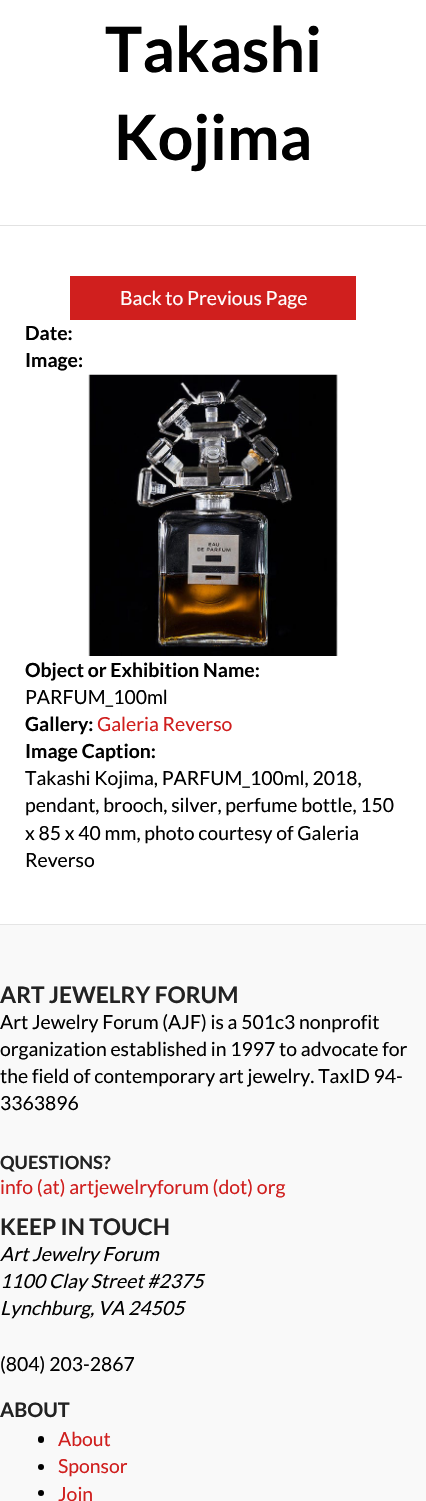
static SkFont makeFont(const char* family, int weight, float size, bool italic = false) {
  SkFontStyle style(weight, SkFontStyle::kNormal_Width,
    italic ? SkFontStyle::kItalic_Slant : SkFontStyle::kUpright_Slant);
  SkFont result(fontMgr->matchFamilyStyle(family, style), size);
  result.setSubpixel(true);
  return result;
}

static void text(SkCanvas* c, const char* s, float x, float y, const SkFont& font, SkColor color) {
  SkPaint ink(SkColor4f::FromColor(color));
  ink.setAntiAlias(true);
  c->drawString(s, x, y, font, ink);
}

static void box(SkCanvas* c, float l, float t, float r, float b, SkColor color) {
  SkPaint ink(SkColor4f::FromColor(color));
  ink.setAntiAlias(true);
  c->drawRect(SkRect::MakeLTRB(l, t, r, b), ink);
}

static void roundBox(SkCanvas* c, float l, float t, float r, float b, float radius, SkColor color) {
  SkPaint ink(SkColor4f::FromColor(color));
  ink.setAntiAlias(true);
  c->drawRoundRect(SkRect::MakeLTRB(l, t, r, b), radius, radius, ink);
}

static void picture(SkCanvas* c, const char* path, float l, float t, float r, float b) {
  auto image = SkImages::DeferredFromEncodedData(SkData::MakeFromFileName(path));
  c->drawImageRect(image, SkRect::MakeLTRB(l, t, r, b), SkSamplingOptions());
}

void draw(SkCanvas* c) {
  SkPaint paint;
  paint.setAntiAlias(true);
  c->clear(0xffffffff);
  box(c, 0, 225, 426, 226, 0xffe2e2e2);
  SkFont face1 = makeFont("Lato", 700, 62.5f);
  text(c, "Takashi", 105, 72, face1, 0xff000000);
  text(c, "Kojima", 114, 160, face1, 0xff000000);
  box(c, 70, 276, 356, 320, 0xffd01f1e);
  SkFont face2 = makeFont("Lato", 400, 19.4f);
  text(c, "Back to Previous Page", 120, 305, face2, 0xffffffff);
  SkFont face3 = makeFont("Lato", 700, 19.4f);
  text(c, "Date:", 25, 340, face3, 0xff000000);
  text(c, "Image:", 25, 367, face3, 0xff000000);
  picture(c, "img_01.png", 88, 374, 338, 656);
  text(c, "Object or Exhibition Name:", 25, 677, face3, 0xff000000);
  text(c, "PARFUM_100ml", 25, 704, face2, 0xff000000);
  text(c, "Gallery:", 25, 731, face3, 0xff000000);
  text(c, "Galeria Reverso", 97, 731, face2, 0xffd01f1e);
  text(c, "Image Caption:", 25, 758, face3, 0xff000000);
  text(c, "Takashi Kojima, PARFUM_100ml, 2018,", 25, 785, face2, 0xff000000);
  text(c, "pendant, brooch, silver, perfume bottle, 150", 25, 812, face2, 0xff000000);
  text(c, "x 85 x 40 mm, photo courtesy of Galeria", 25, 840, face2, 0xff000000);
  text(c, "Reverso", 25, 867, face2, 0xff000000);
  box(c, 0, 925, 426, 1501, 0xfff9f9f9);
  box(c, 0, 924, 426, 925, 0xffe5e5e5);
  SkFont face4 = makeFont("Lato", 700, 22.75f);
  text(c, "ART JEWELRY FORUM", 0, 1003, face4, 0xff222222);
  text(c, "Art Jewelry Forum (AJF) is a 501c3 nonprofit", 0, 1029, face2, 0xff000000);
  text(c, "organization established in 1997 to advocate for", 0, 1056, face2, 0xff000000);
  text(c, "the field of contemporary art jewelry. TaxID 94-", 0, 1083, face2, 0xff000000);
  text(c, "3363896", 0, 1110, face2, 0xff000000);
  SkFont face5 = makeFont("Lato", 700, 18.25f);
  text(c, "QUESTIONS?", 0, 1169, face5, 0xff222222);
  text(c, "info (at) artjewelryforum (dot) org", 0, 1194, face2, 0xffd01f1e);
  text(c, "KEEP IN TOUCH", 0, 1235, face4, 0xff222222);
  SkFont face6 = makeFont("Lato", 400, 19.4f, true);
  text(c, "Art Jewelry Forum", 0, 1261, face6, 0xff000000);
  text(c, "1100 Clay Street #2375", 0, 1288, face6, 0xff000000);
  text(c, "Lynchburg, VA 24505", 0, 1315, face6, 0xff000000);
  text(c, "(804) 203-2867", 0, 1371, face2, 0xff000000);
  SkFont face7 = makeFont("Lato", 700, 20);
  text(c, "ABOUT", 0, 1417, face7, 0xff222222);
  roundBox(c, 38, 1436, 44, 1443, 3, 0xff000000);
  text(c, "About", 58, 1446, face2, 0xffd01f1e);
  paint.setColor(0xff000000);
  c->drawCircle(41, 1467, 3, paint);
  text(c, "Sponsor", 58, 1473, face2, 0xffd01f1e);
  c->drawCircle(41, 1493, 3, paint);
  text(c, "Join", 58, 1501, face2, 0xffd01f1e);
}
